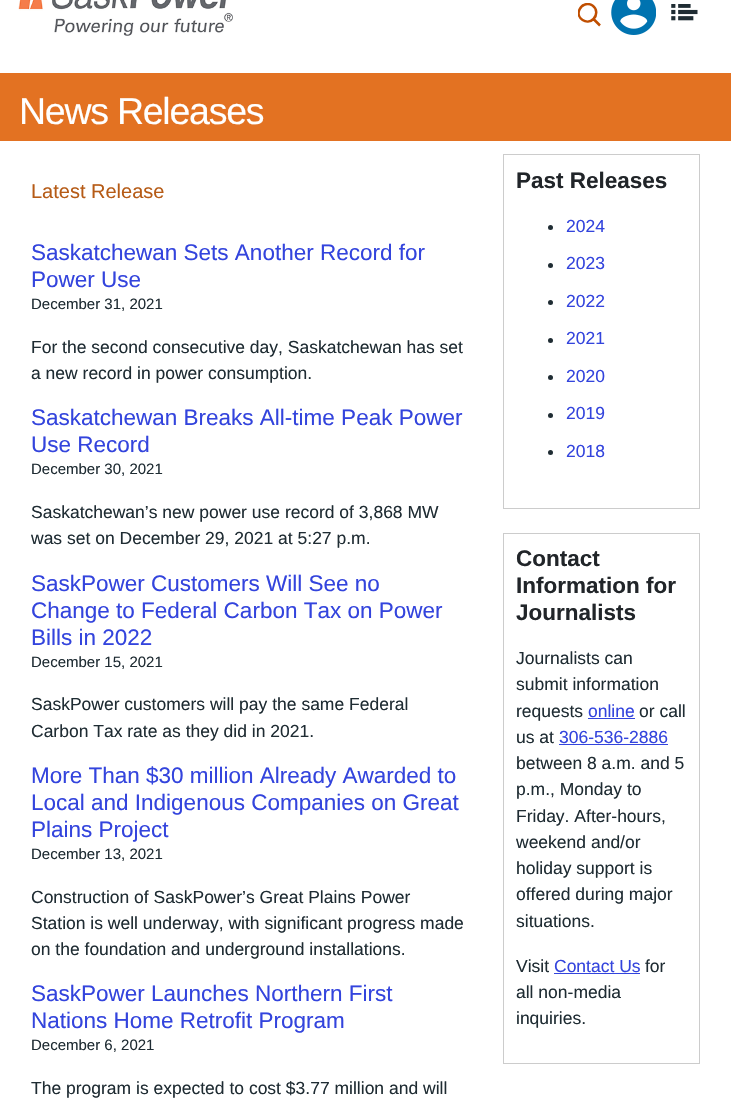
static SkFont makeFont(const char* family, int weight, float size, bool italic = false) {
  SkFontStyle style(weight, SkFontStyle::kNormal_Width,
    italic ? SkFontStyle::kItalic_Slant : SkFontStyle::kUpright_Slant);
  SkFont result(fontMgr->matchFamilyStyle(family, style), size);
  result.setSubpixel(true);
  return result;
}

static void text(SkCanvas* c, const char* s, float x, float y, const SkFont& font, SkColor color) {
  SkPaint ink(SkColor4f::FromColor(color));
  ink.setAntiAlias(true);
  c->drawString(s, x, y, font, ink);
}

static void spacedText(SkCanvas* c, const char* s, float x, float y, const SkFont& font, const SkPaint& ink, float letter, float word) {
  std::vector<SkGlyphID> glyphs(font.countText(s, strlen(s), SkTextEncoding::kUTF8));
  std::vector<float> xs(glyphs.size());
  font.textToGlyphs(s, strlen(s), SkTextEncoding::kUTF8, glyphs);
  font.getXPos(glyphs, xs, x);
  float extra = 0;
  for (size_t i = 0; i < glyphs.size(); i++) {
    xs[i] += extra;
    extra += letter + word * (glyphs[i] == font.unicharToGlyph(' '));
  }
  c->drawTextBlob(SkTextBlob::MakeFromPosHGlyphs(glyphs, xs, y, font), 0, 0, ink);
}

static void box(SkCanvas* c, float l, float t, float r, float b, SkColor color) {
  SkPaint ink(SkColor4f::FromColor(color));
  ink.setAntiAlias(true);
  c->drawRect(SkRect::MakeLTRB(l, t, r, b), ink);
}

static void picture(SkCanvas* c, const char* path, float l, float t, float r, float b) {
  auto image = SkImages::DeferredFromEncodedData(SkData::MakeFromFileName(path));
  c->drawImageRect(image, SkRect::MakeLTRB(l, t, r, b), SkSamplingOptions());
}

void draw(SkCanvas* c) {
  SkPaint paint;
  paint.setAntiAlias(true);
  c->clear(0xffe37222);
  box(c, 0, 0, 731, 73, 0xffffffff);
  picture(c, "img_01.png", 18, 0, 233, 36);
  c->save();
  c->clipRect(SkRect::MakeLTRB(578, 3, 606, 31));
  paint.setStyle(SkPaint::kStroke_Style);
  paint.setStrokeWidth(2.5f);
  paint.setColor(0xffc04e00);
  c->drawPath(SkPathBuilder().moveTo(593.5f, 19).cubicTo(587, 25.5f, 575.5f, 18.5f, 579.5f, 9.5f).cubicTo(580.5f, 7.5f, 582, 5.5f, 584, 5).cubicTo(587, 3.5f, 590, 4, 592.5f, 5.5f).cubicTo(597, 8.5f, 597.5f, 15, 593.5f, 19).lineTo(600, 25.5f).close().detach(), paint);
  c->restore();
  picture(c, "img_02.png", 611, 0, 656, 35);
  picture(c, "img_03.png", 671, 4, 698, 21);
  SkFont face1 = makeFont("Liberation Sans", 400, 37.5f);
  paint.setStyle(SkPaint::kFill_Style);
  paint.setColor(0xffffffff);
  spacedText(c, "News Releases", 19, 124, face1, paint, -1.25f, 0);
  box(c, 0, 141, 731, 1114, 0xffffffff);
  SkFont face2 = makeFont("Liberation Sans", 400, 20);
  text(c, "Latest Release", 31, 198, face2, 0xffb65b16);
  SkFont face3 = makeFont("Liberation Sans", 400, 22.5f);
  text(c, "Saskatchewan Sets Another Record for", 31, 260, face3, 0xff3344dd);
  text(c, "Power Use", 31, 287, face3, 0xff3344dd);
  SkFont face4 = makeFont("Liberation Sans", 400, 15);
  text(c, "December 31, 2021", 31, 309, face4, 0xff1f2c33);
  SkFont face5 = makeFont("Liberation Sans", 400, 17.5f);
  text(c, "For the second consecutive day, Saskatchewan has set", 31, 353, face5, 0xff1f2c33);
  text(c, "a new record in power consumption.", 31, 379, face5, 0xff1f2c33);
  text(c, "Saskatchewan Breaks All-time Peak Power", 31, 425, face3, 0xff3344dd);
  text(c, "Use Record", 31, 452, face3, 0xff3344dd);
  text(c, "December 30, 2021", 31, 474, face4, 0xff1f2c33);
  text(c, "Saskatchewan’s new power use record of 3,868 MW", 31, 518, face5, 0xff1f2c33);
  text(c, "was set on December 29, 2021 at 5:27 p.m.", 31, 544, face5, 0xff1f2c33);
  text(c, "SaskPower Customers Will See no", 31, 591, face3, 0xff3344dd);
  text(c, "Change to Federal Carbon Tax on Power", 31, 618, face3, 0xff3344dd);
  text(c, "Bills in 2022", 31, 645, face3, 0xff3344dd);
  text(c, "December 15, 2021", 31, 667, face4, 0xff1f2c33);
  text(c, "SaskPower customers will pay the same Federal", 31, 710, face5, 0xff1f2c33);
  text(c, "Carbon Tax rate as they did in 2021.", 31, 737, face5, 0xff1f2c33);
  text(c, "More Than $30 million Already Awarded to", 31, 783, face3, 0xff3344dd);
  text(c, "Local and Indigenous Companies on Great", 31, 810, face3, 0xff3344dd);
  text(c, "Plains Project", 31, 837, face3, 0xff3344dd);
  text(c, "December 13, 2021", 31, 859, face4, 0xff1f2c33);
  text(c, "Construction of SaskPower’s Great Plains Power", 31, 903, face5, 0xff1f2c33);
  text(c, "Station is well underway, with significant progress made", 31, 929, face5, 0xff1f2c33);
  text(c, "on the foundation and underground installations.", 31, 955, face5, 0xff1f2c33);
  text(c, "SaskPower Launches Northern First", 31, 1001, face3, 0xff3344dd);
  text(c, "Nations Home Retrofit Program", 31, 1028, face3, 0xff3344dd);
  text(c, "December 6, 2021", 31, 1050, face4, 0xff1f2c33);
  text(c, "The program is expected to cost $3.77 million and will", 31, 1094, face5, 0xff1f2c33);
  paint.setStyle(SkPaint::kStroke_Style);
  paint.setStrokeWidth(1);
  paint.setColor(0xffcccccc);
  c->drawRect(SkRect::MakeLTRB(503.5f, 154.5f, 699.5f, 508.5f), paint);
  SkFont face6 = makeFont("Liberation Sans", 700, 22.5f);
  text(c, "Past Releases", 516, 188, face6, 0xff212529);
  paint.setStyle(SkPaint::kFill_Style);
  paint.setColor(0xff1f2c33);
  c->drawCircle(550.5f, 227.5f, 2.5f, paint);
  text(c, "2024", 566, 232, face5, 0xff3344dd);
  c->drawCircle(550.5f, 265.5f, 2.5f, paint);
  text(c, "2023", 566, 269, face5, 0xff3344dd);
  c->drawCircle(550.5f, 302.5f, 2.5f, paint);
  text(c, "2022", 566, 307, face5, 0xff3344dd);
  c->drawCircle(550.5f, 340.5f, 2.5f, paint);
  text(c, "2021", 566, 344, face5, 0xff3344dd);
  c->drawCircle(550.5f, 377.5f, 2.5f, paint);
  text(c, "2020", 566, 382, face5, 0xff3344dd);
  c->drawCircle(550.5f, 415.5f, 2.5f, paint);
  text(c, "2019", 566, 419, face5, 0xff3344dd);
  c->drawCircle(550.5f, 452.5f, 2.5f, paint);
  text(c, "2018", 566, 457, face5, 0xff3344dd);
  paint.setStyle(SkPaint::kStroke_Style);
  paint.setColor(0xffcccccc);
  c->drawRect(SkRect::MakeLTRB(503.5f, 533.5f, 699.5f, 1063.5f), paint);
  text(c, "Contact", 516, 566, face6, 0xff212529);
  text(c, "Information for", 516, 593, face6, 0xff212529);
  text(c, "Journalists", 516, 620, face6, 0xff212529);
  text(c, "Journalists can", 516, 664, face5, 0xff1f2c33);
  text(c, "submit information", 516, 690, face5, 0xff1f2c33);
  text(c, "requests", 516, 717, face5, 0xff1f2c33);
  text(c, "online", 588, 717, face5, 0xff3344dd);
  box(c, 588, 718, 635, 719, 0xff3344dd);
  text(c, "or call", 639, 717, face5, 0xff1f2c33);
  text(c, "us at", 516, 743, face5, 0xff1f2c33);
  text(c, "306-536-2886", 559, 743, face5, 0xff3344dd);
  box(c, 559, 744, 668, 745, 0xff3344dd);
  text(c, "between 8 a.m. and 5", 516, 769, face5, 0xff1f2c33);
  text(c, "p.m., Monday to", 516, 795, face5, 0xff1f2c33);
  text(c, "Friday. After-hours,", 516, 822, face5, 0xff1f2c33);
  text(c, "weekend and/or", 516, 848, face5, 0xff1f2c33);
  text(c, "holiday support is", 516, 874, face5, 0xff1f2c33);
  text(c, "offered during major", 516, 900, face5, 0xff1f2c33);
  text(c, "situations.", 516, 927, face5, 0xff1f2c33);
  text(c, "Visit", 516, 972, face5, 0xff1f2c33);
  text(c, "Contact Us", 554, 972, face5, 0xff3344dd);
  box(c, 554, 973, 640, 974, 0xff3344dd);
  text(c, "for", 645, 972, face5, 0xff1f2c33);
  text(c, "all non-media", 516, 998, face5, 0xff1f2c33);
  text(c, "inquiries.", 516, 1024, face5, 0xff1f2c33);
}
